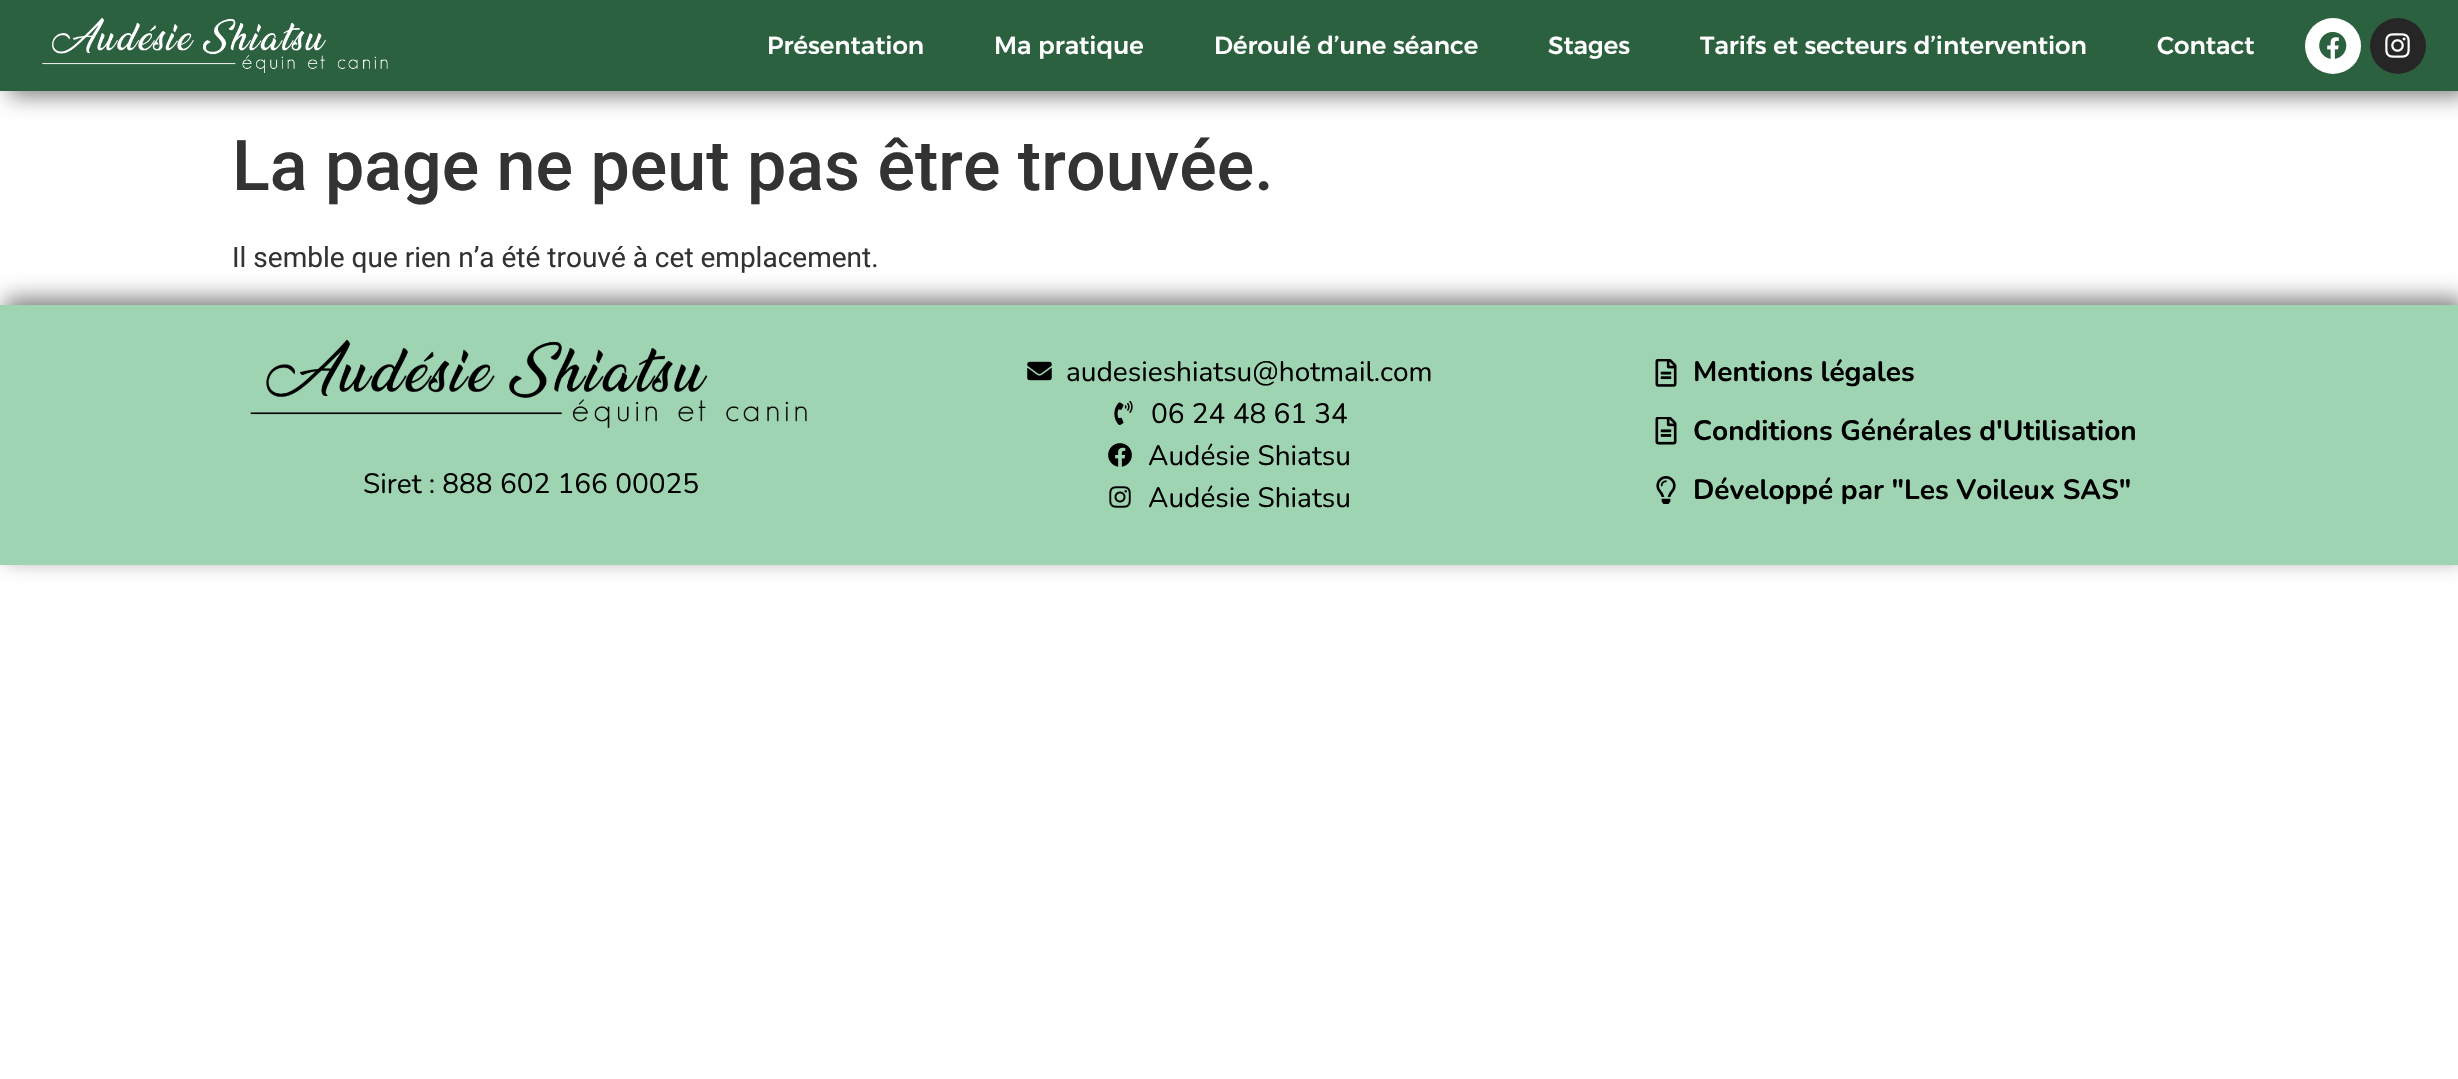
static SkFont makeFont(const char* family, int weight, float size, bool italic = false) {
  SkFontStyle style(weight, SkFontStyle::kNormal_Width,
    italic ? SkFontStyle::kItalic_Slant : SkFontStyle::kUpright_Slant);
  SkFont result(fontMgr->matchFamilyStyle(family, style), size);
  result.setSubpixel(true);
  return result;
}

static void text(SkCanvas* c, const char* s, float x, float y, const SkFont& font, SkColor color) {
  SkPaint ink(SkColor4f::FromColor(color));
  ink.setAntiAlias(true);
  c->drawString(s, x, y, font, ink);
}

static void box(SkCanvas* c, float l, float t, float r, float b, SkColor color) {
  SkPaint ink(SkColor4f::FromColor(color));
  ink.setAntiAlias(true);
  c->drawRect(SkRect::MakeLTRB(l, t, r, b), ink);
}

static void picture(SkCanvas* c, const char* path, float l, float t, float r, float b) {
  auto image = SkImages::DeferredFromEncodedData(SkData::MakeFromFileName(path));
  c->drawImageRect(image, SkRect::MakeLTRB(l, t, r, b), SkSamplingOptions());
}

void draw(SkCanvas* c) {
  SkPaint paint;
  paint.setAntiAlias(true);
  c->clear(0xffffffff);
  paint.setColor(0x80000000);
  paint.setMaskFilter(SkMaskFilter::MakeBlur(kNormal_SkBlurStyle, 10.5f));
  c->drawRect(SkRect::MakeLTRB(9, 5, 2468, 96), paint);
  paint.setMaskFilter(nullptr);
  box(c, 0, 0, 2458, 91, 0xff2c6140);
  picture(c, "img_01.png", 42, 18, 388, 73);
  SkFont face1 = makeFont("Alexandria", 500, 24.5f);
  text(c, "Présentation", 767, 54, face1, 0xffffffff);
  text(c, "Ma pratique", 994, 54, face1, 0xffffffff);
  text(c, "Déroulé d’une séance", 1214, 54, face1, 0xffffffff);
  text(c, "Stages", 1548, 54, face1, 0xffffffff);
  text(c, "Tarifs et secteurs d’intervention", 1700, 54, face1, 0xffffffff);
  text(c, "Contact", 2157, 54, face1, 0xffffffff);
  paint.setColor(0xffffffff);
  c->drawCircle(2333, 46, 28, paint);
  picture(c, "img_02.png", 2319, 32, 2347, 59);
  paint.setColor(0xff262626);
  c->drawCircle(2398, 46, 28, paint);
  picture(c, "img_03.png", 2385, 33, 2410, 58);
  SkFont face2 = makeFont("Roboto", 500, 70);
  text(c, "La page ne peut pas être trouvée.", 232, 190, face2, 0xff333333);
  SkFont face3 = makeFont("Roboto", 400, 28);
  text(c, "Il semble que rien n’a été trouvé à cet emplacement.", 232, 267, face3, 0xff333333);
  paint.setColor(0x80000000);
  paint.setMaskFilter(SkMaskFilter::MakeBlur(kNormal_SkBlurStyle, 10.5f));
  c->drawRect(SkRect::MakeLTRB(5, 298, 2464, 558), paint);
  paint.setMaskFilter(nullptr);
  box(c, 0, 305, 2458, 565, 0xff9ed4b2);
  picture(c, "img_04.png", 250, 339, 807, 428);
  SkFont face4 = makeFont("Nunito", 400, 28);
  text(c, "Siret : 888 602 166 00025", 363, 493, face4, 0xff000000);
  picture(c, "img_05.png", 1027, 361, 1052, 381);
  text(c, "audesieshiatsu@hotmail.com", 1066, 381, face4, 0xff000000);
  picture(c, "img_06.png", 1114, 401, 1133, 425);
  text(c, "06 24 48 61 34", 1151, 423, face4, 0xff000000);
  picture(c, "img_07.png", 1108, 443, 1132, 467);
  text(c, "Audésie Shiatsu", 1148, 465, face4, 0xff000000);
  picture(c, "img_08.png", 1109, 486, 1131, 508);
  text(c, "Audésie Shiatsu", 1148, 507, face4, 0xff000000);
  picture(c, "img_09.png", 1655, 359, 1677, 387);
  SkFont face5 = makeFont("Nunito", 700, 28);
  text(c, "Mentions légales", 1693, 381, face5, 0xff000000);
  picture(c, "img_10.png", 1655, 417, 1677, 445);
  text(c, "Conditions Générales d'Utilisation", 1693, 440, face5, 0xff000000);
  picture(c, "img_11.png", 1656, 476, 1676, 504);
  text(c, "Développé par \"Les Voileux SAS\"", 1693, 499, face5, 0xff000000);
}
